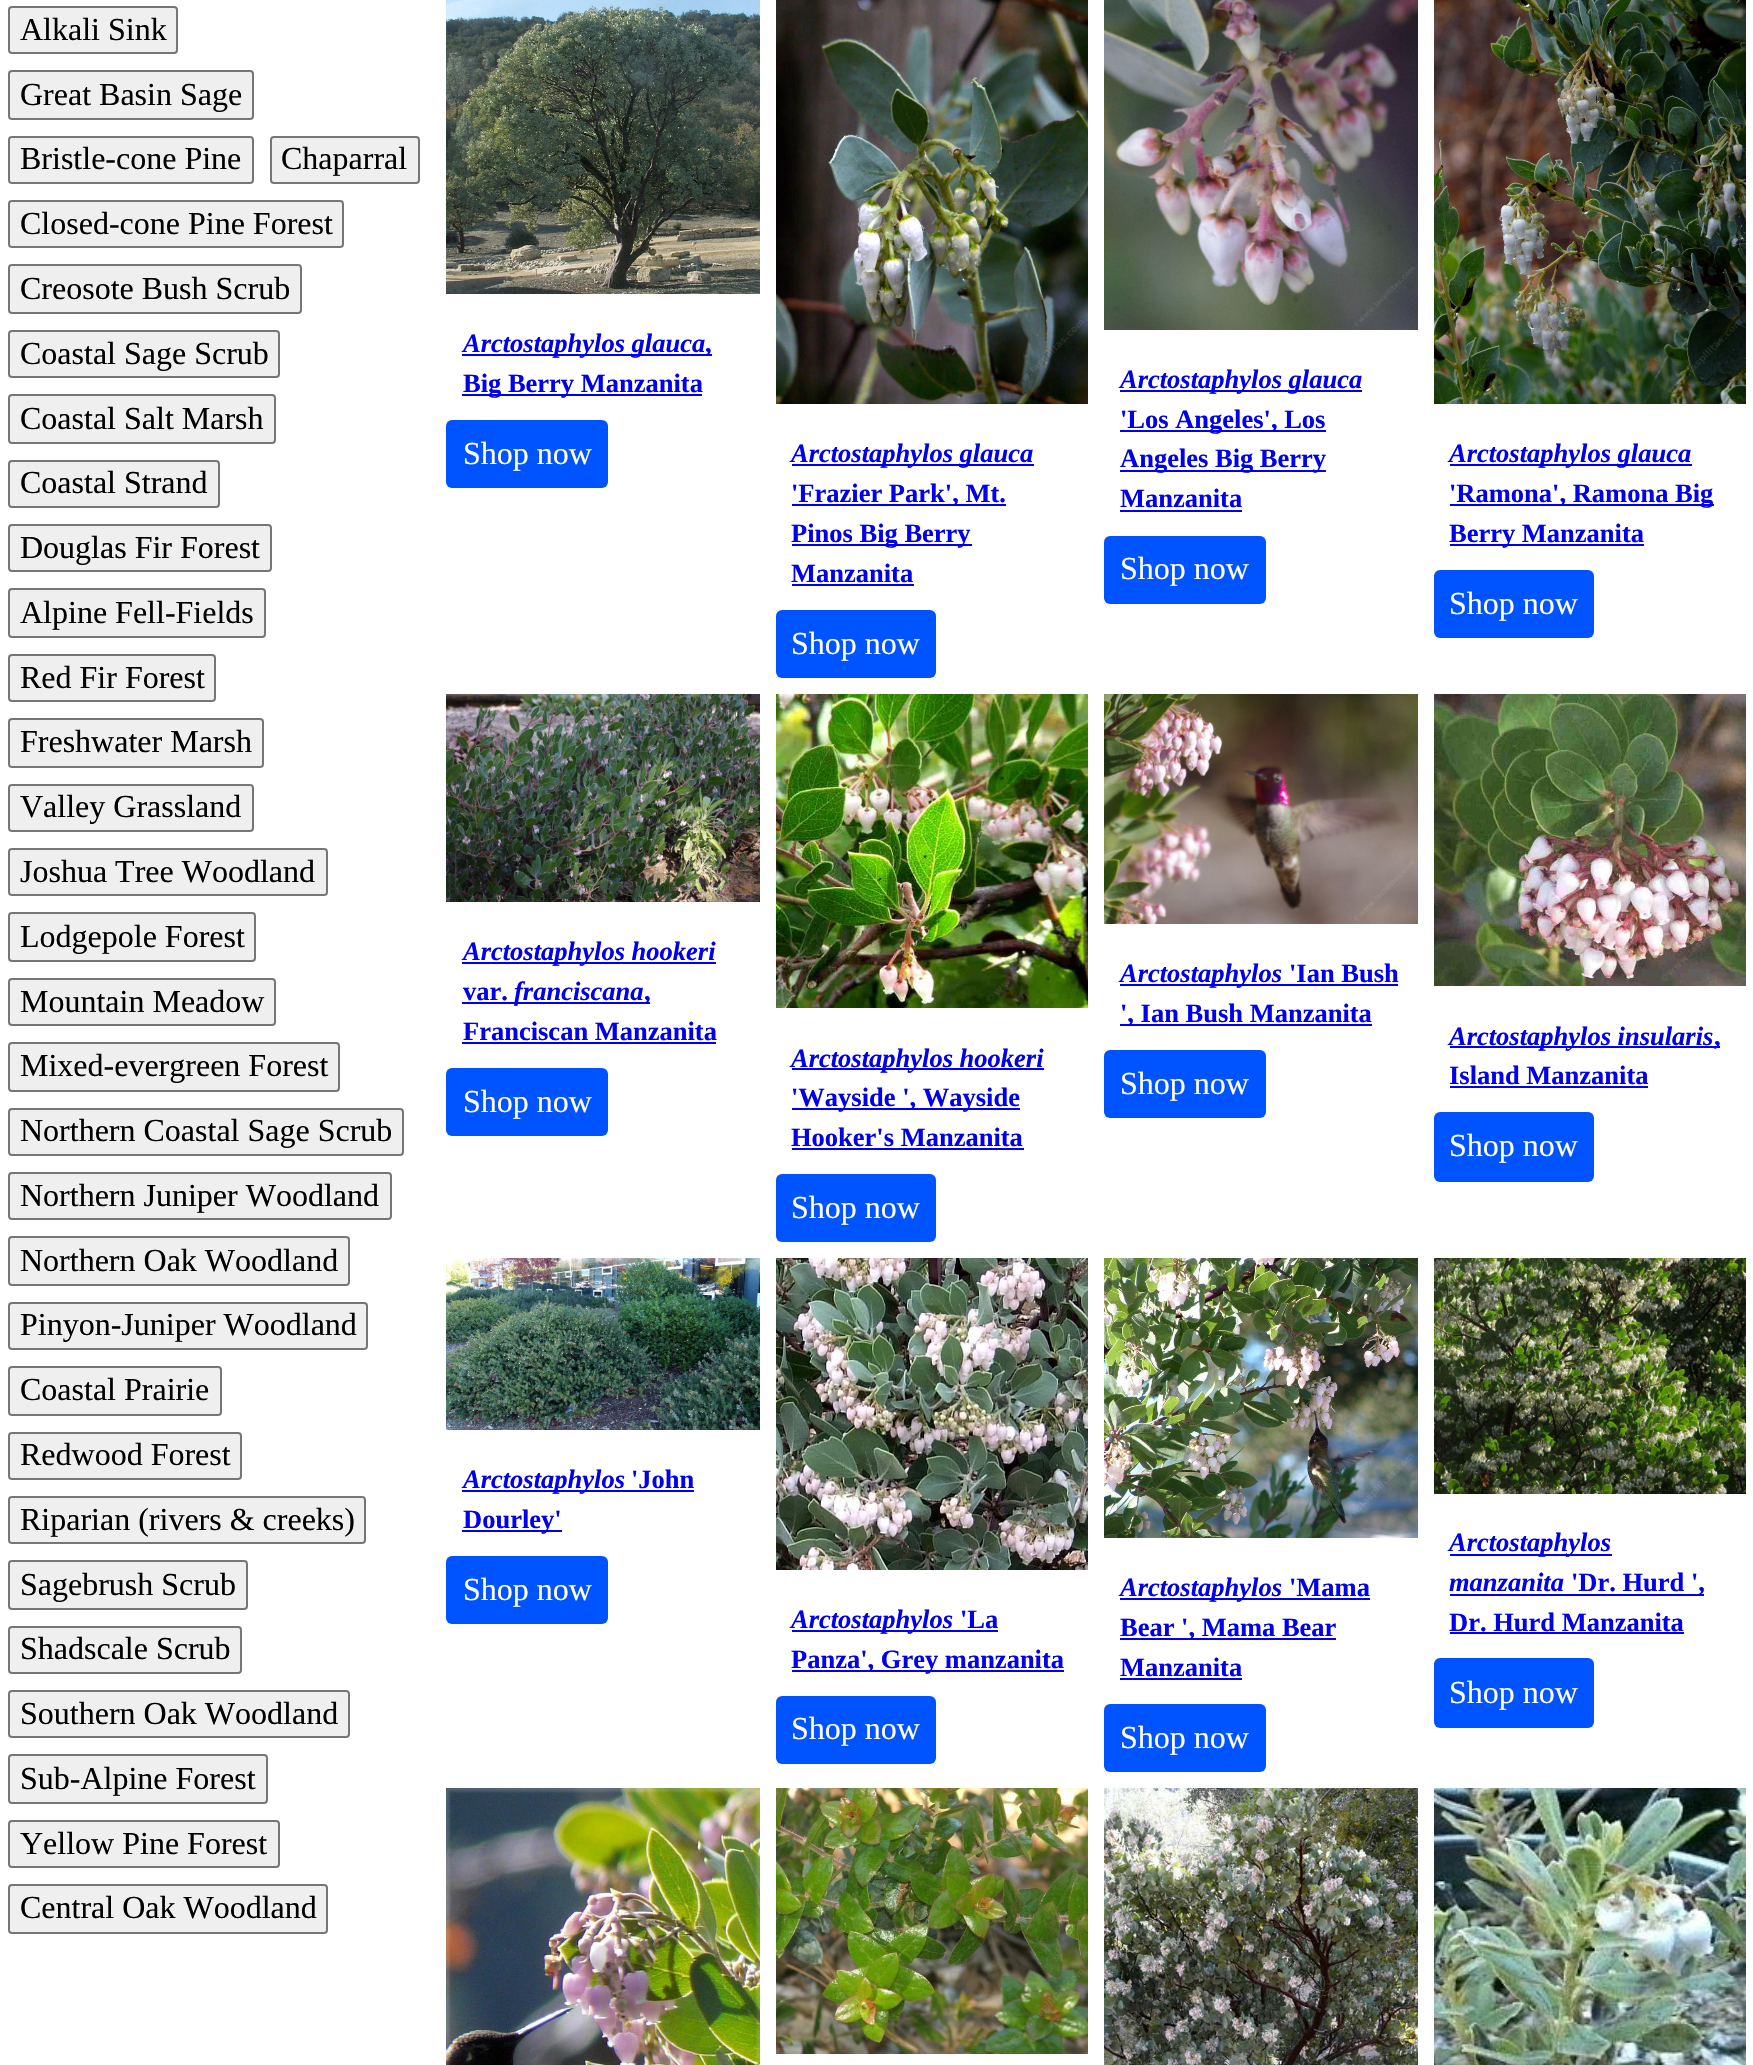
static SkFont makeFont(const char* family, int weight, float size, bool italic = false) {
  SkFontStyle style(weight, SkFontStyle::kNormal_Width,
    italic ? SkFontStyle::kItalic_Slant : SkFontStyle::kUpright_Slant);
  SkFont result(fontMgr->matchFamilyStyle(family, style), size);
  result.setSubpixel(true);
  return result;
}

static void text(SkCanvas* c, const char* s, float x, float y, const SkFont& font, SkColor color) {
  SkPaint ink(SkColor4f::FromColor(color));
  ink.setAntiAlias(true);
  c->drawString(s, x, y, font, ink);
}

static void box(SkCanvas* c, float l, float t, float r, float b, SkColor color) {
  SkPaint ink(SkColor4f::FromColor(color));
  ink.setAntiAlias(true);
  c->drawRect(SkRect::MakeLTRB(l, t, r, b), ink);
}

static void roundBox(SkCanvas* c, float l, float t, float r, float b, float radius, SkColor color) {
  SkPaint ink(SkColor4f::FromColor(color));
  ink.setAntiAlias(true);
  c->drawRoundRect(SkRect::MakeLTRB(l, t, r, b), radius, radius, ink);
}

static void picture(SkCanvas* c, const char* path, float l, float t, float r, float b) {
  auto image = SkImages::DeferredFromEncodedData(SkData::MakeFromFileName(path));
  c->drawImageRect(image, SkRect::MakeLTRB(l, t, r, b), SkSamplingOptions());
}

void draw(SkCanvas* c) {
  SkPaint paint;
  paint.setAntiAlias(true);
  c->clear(0xffffffff);
  paint.setColor(0xffefefef);
  c->drawRoundRect(SkRect::MakeLTRB(9, 7, 177, 53), 3, 3, paint);
  paint.setStyle(SkPaint::kStroke_Style);
  paint.setStrokeWidth(2);
  paint.setColor(0xff767676);
  c->drawRoundRect(SkRect::MakeLTRB(9, 7, 177, 53), 3, 3, paint);
  SkFont face1 = makeFont("Liberation Serif", 400, 32);
  text(c, "Alkali Sink", 20, 40, face1, 0xff000000);
  paint.setStyle(SkPaint::kFill_Style);
  paint.setColor(0xffefefef);
  c->drawRoundRect(SkRect::MakeLTRB(9, 71, 253, 119), 3, 3, paint);
  paint.setStyle(SkPaint::kStroke_Style);
  paint.setColor(0xff767676);
  c->drawRoundRect(SkRect::MakeLTRB(9, 71, 253, 119), 3, 3, paint);
  text(c, "Great Basin Sage", 20, 105, face1, 0xff000000);
  paint.setStyle(SkPaint::kFill_Style);
  paint.setColor(0xffefefef);
  c->drawRoundRect(SkRect::MakeLTRB(9, 137, 253, 183), 3, 3, paint);
  paint.setStyle(SkPaint::kStroke_Style);
  paint.setColor(0xff767676);
  c->drawRoundRect(SkRect::MakeLTRB(9, 137, 253, 183), 3, 3, paint);
  text(c, "Bristle-cone Pine", 20, 169, face1, 0xff000000);
  paint.setStyle(SkPaint::kFill_Style);
  paint.setColor(0xffefefef);
  c->drawRoundRect(SkRect::MakeLTRB(271, 137, 419, 183), 3, 3, paint);
  paint.setStyle(SkPaint::kStroke_Style);
  paint.setColor(0xff767676);
  c->drawRoundRect(SkRect::MakeLTRB(271, 137, 419, 183), 3, 3, paint);
  text(c, "Chaparral", 281, 169, face1, 0xff000000);
  paint.setStyle(SkPaint::kFill_Style);
  paint.setColor(0xffefefef);
  c->drawRoundRect(SkRect::MakeLTRB(9, 201, 343, 247), 3, 3, paint);
  paint.setStyle(SkPaint::kStroke_Style);
  paint.setColor(0xff767676);
  c->drawRoundRect(SkRect::MakeLTRB(9, 201, 343, 247), 3, 3, paint);
  text(c, "Closed-cone Pine Forest", 20, 234, face1, 0xff000000);
  paint.setStyle(SkPaint::kFill_Style);
  paint.setColor(0xffefefef);
  c->drawRoundRect(SkRect::MakeLTRB(9, 265, 301, 313), 3, 3, paint);
  paint.setStyle(SkPaint::kStroke_Style);
  paint.setColor(0xff767676);
  c->drawRoundRect(SkRect::MakeLTRB(9, 265, 301, 313), 3, 3, paint);
  text(c, "Creosote Bush Scrub", 20, 299, face1, 0xff000000);
  paint.setStyle(SkPaint::kFill_Style);
  paint.setColor(0xffefefef);
  c->drawRoundRect(SkRect::MakeLTRB(9, 331, 279, 377), 3, 3, paint);
  paint.setStyle(SkPaint::kStroke_Style);
  paint.setColor(0xff767676);
  c->drawRoundRect(SkRect::MakeLTRB(9, 331, 279, 377), 3, 3, paint);
  text(c, "Coastal Sage Scrub", 20, 364, face1, 0xff000000);
  paint.setStyle(SkPaint::kFill_Style);
  paint.setColor(0xffefefef);
  c->drawRoundRect(SkRect::MakeLTRB(9, 395, 275, 443), 3, 3, paint);
  paint.setStyle(SkPaint::kStroke_Style);
  paint.setColor(0xff767676);
  c->drawRoundRect(SkRect::MakeLTRB(9, 395, 275, 443), 3, 3, paint);
  text(c, "Coastal Salt Marsh", 20, 429, face1, 0xff000000);
  paint.setStyle(SkPaint::kFill_Style);
  paint.setColor(0xffefefef);
  c->drawRoundRect(SkRect::MakeLTRB(9, 461, 219, 507), 3, 3, paint);
  paint.setStyle(SkPaint::kStroke_Style);
  paint.setColor(0xff767676);
  c->drawRoundRect(SkRect::MakeLTRB(9, 461, 219, 507), 3, 3, paint);
  text(c, "Coastal Strand", 20, 493, face1, 0xff000000);
  paint.setStyle(SkPaint::kFill_Style);
  paint.setColor(0xffefefef);
  c->drawRoundRect(SkRect::MakeLTRB(9, 525, 271, 571), 3, 3, paint);
  paint.setStyle(SkPaint::kStroke_Style);
  paint.setColor(0xff767676);
  c->drawRoundRect(SkRect::MakeLTRB(9, 525, 271, 571), 3, 3, paint);
  text(c, "Douglas Fir Forest", 20, 558, face1, 0xff000000);
  paint.setStyle(SkPaint::kFill_Style);
  paint.setColor(0xffefefef);
  c->drawRoundRect(SkRect::MakeLTRB(9, 589, 265, 637), 3, 3, paint);
  paint.setStyle(SkPaint::kStroke_Style);
  paint.setColor(0xff767676);
  c->drawRoundRect(SkRect::MakeLTRB(9, 589, 265, 637), 3, 3, paint);
  text(c, "Alpine Fell-Fields", 20, 623, face1, 0xff000000);
  paint.setStyle(SkPaint::kFill_Style);
  paint.setColor(0xffefefef);
  c->drawRoundRect(SkRect::MakeLTRB(9, 655, 215, 701), 3, 3, paint);
  paint.setStyle(SkPaint::kStroke_Style);
  paint.setColor(0xff767676);
  c->drawRoundRect(SkRect::MakeLTRB(9, 655, 215, 701), 3, 3, paint);
  text(c, "Red Fir Forest", 20, 688, face1, 0xff000000);
  paint.setStyle(SkPaint::kFill_Style);
  paint.setColor(0xffefefef);
  c->drawRoundRect(SkRect::MakeLTRB(9, 719, 263, 767), 3, 3, paint);
  paint.setStyle(SkPaint::kStroke_Style);
  paint.setColor(0xff767676);
  c->drawRoundRect(SkRect::MakeLTRB(9, 719, 263, 767), 3, 3, paint);
  text(c, "Freshwater Marsh", 20, 752, face1, 0xff000000);
  paint.setStyle(SkPaint::kFill_Style);
  paint.setColor(0xffefefef);
  c->drawRoundRect(SkRect::MakeLTRB(9, 785, 253, 831), 3, 3, paint);
  paint.setStyle(SkPaint::kStroke_Style);
  paint.setColor(0xff767676);
  c->drawRoundRect(SkRect::MakeLTRB(9, 785, 253, 831), 3, 3, paint);
  text(c, "Valley Grassland", 20, 817, face1, 0xff000000);
  paint.setStyle(SkPaint::kFill_Style);
  paint.setColor(0xffefefef);
  c->drawRoundRect(SkRect::MakeLTRB(9, 849, 327, 895), 3, 3, paint);
  paint.setStyle(SkPaint::kStroke_Style);
  paint.setColor(0xff767676);
  c->drawRoundRect(SkRect::MakeLTRB(9, 849, 327, 895), 3, 3, paint);
  text(c, "Joshua Tree Woodland", 20, 882, face1, 0xff000000);
  paint.setStyle(SkPaint::kFill_Style);
  paint.setColor(0xffefefef);
  c->drawRoundRect(SkRect::MakeLTRB(9, 913, 255, 961), 3, 3, paint);
  paint.setStyle(SkPaint::kStroke_Style);
  paint.setColor(0xff767676);
  c->drawRoundRect(SkRect::MakeLTRB(9, 913, 255, 961), 3, 3, paint);
  text(c, "Lodgepole Forest", 20, 947, face1, 0xff000000);
  paint.setStyle(SkPaint::kFill_Style);
  paint.setColor(0xffefefef);
  c->drawRoundRect(SkRect::MakeLTRB(9, 979, 275, 1025), 3, 3, paint);
  paint.setStyle(SkPaint::kStroke_Style);
  paint.setColor(0xff767676);
  c->drawRoundRect(SkRect::MakeLTRB(9, 979, 275, 1025), 3, 3, paint);
  text(c, "Mountain Meadow", 20, 1012, face1, 0xff000000);
  paint.setStyle(SkPaint::kFill_Style);
  paint.setColor(0xffefefef);
  c->drawRoundRect(SkRect::MakeLTRB(9, 1043, 339, 1091), 3, 3, paint);
  paint.setStyle(SkPaint::kStroke_Style);
  paint.setColor(0xff767676);
  c->drawRoundRect(SkRect::MakeLTRB(9, 1043, 339, 1091), 3, 3, paint);
  text(c, "Mixed-evergreen Forest", 20, 1076, face1, 0xff000000);
  paint.setStyle(SkPaint::kFill_Style);
  paint.setColor(0xffefefef);
  c->drawRoundRect(SkRect::MakeLTRB(9, 1109, 403, 1155), 3, 3, paint);
  paint.setStyle(SkPaint::kStroke_Style);
  paint.setColor(0xff767676);
  c->drawRoundRect(SkRect::MakeLTRB(9, 1109, 403, 1155), 3, 3, paint);
  text(c, "Northern Coastal Sage Scrub", 20, 1141, face1, 0xff000000);
  paint.setStyle(SkPaint::kFill_Style);
  paint.setColor(0xffefefef);
  c->drawRoundRect(SkRect::MakeLTRB(9, 1173, 391, 1219), 3, 3, paint);
  paint.setStyle(SkPaint::kStroke_Style);
  paint.setColor(0xff767676);
  c->drawRoundRect(SkRect::MakeLTRB(9, 1173, 391, 1219), 3, 3, paint);
  text(c, "Northern Juniper Woodland", 20, 1206, face1, 0xff000000);
  paint.setStyle(SkPaint::kFill_Style);
  paint.setColor(0xffefefef);
  c->drawRoundRect(SkRect::MakeLTRB(9, 1237, 349, 1285), 3, 3, paint);
  paint.setStyle(SkPaint::kStroke_Style);
  paint.setColor(0xff767676);
  c->drawRoundRect(SkRect::MakeLTRB(9, 1237, 349, 1285), 3, 3, paint);
  text(c, "Northern Oak Woodland", 20, 1271, face1, 0xff000000);
  paint.setStyle(SkPaint::kFill_Style);
  paint.setColor(0xffefefef);
  c->drawRoundRect(SkRect::MakeLTRB(9, 1303, 367, 1349), 3, 3, paint);
  paint.setStyle(SkPaint::kStroke_Style);
  paint.setColor(0xff767676);
  c->drawRoundRect(SkRect::MakeLTRB(9, 1303, 367, 1349), 3, 3, paint);
  text(c, "Pinyon-Juniper Woodland", 20, 1335, face1, 0xff000000);
  paint.setStyle(SkPaint::kFill_Style);
  paint.setColor(0xffefefef);
  c->drawRoundRect(SkRect::MakeLTRB(9, 1367, 221, 1415), 3, 3, paint);
  paint.setStyle(SkPaint::kStroke_Style);
  paint.setColor(0xff767676);
  c->drawRoundRect(SkRect::MakeLTRB(9, 1367, 221, 1415), 3, 3, paint);
  text(c, "Coastal Prairie", 20, 1400, face1, 0xff000000);
  paint.setStyle(SkPaint::kFill_Style);
  paint.setColor(0xffefefef);
  c->drawRoundRect(SkRect::MakeLTRB(9, 1433, 241, 1479), 3, 3, paint);
  paint.setStyle(SkPaint::kStroke_Style);
  paint.setColor(0xff767676);
  c->drawRoundRect(SkRect::MakeLTRB(9, 1433, 241, 1479), 3, 3, paint);
  text(c, "Redwood Forest", 20, 1465, face1, 0xff000000);
  paint.setStyle(SkPaint::kFill_Style);
  paint.setColor(0xffefefef);
  c->drawRoundRect(SkRect::MakeLTRB(9, 1497, 365, 1543), 3, 3, paint);
  paint.setStyle(SkPaint::kStroke_Style);
  paint.setColor(0xff767676);
  c->drawRoundRect(SkRect::MakeLTRB(9, 1497, 365, 1543), 3, 3, paint);
  text(c, "Riparian (rivers & creeks)", 20, 1530, face1, 0xff000000);
  paint.setStyle(SkPaint::kFill_Style);
  paint.setColor(0xffefefef);
  c->drawRoundRect(SkRect::MakeLTRB(9, 1561, 247, 1609), 3, 3, paint);
  paint.setStyle(SkPaint::kStroke_Style);
  paint.setColor(0xff767676);
  c->drawRoundRect(SkRect::MakeLTRB(9, 1561, 247, 1609), 3, 3, paint);
  text(c, "Sagebrush Scrub", 20, 1595, face1, 0xff000000);
  paint.setStyle(SkPaint::kFill_Style);
  paint.setColor(0xffefefef);
  c->drawRoundRect(SkRect::MakeLTRB(9, 1627, 241, 1673), 3, 3, paint);
  paint.setStyle(SkPaint::kStroke_Style);
  paint.setColor(0xff767676);
  c->drawRoundRect(SkRect::MakeLTRB(9, 1627, 241, 1673), 3, 3, paint);
  text(c, "Shadscale Scrub", 20, 1659, face1, 0xff000000);
  paint.setStyle(SkPaint::kFill_Style);
  paint.setColor(0xffefefef);
  c->drawRoundRect(SkRect::MakeLTRB(9, 1691, 349, 1737), 3, 3, paint);
  paint.setStyle(SkPaint::kStroke_Style);
  paint.setColor(0xff767676);
  c->drawRoundRect(SkRect::MakeLTRB(9, 1691, 349, 1737), 3, 3, paint);
  text(c, "Southern Oak Woodland", 20, 1724, face1, 0xff000000);
  paint.setStyle(SkPaint::kFill_Style);
  paint.setColor(0xffefefef);
  c->drawRoundRect(SkRect::MakeLTRB(9, 1755, 267, 1803), 3, 3, paint);
  paint.setStyle(SkPaint::kStroke_Style);
  paint.setColor(0xff767676);
  c->drawRoundRect(SkRect::MakeLTRB(9, 1755, 267, 1803), 3, 3, paint);
  text(c, "Sub-Alpine Forest", 20, 1789, face1, 0xff000000);
  paint.setStyle(SkPaint::kFill_Style);
  paint.setColor(0xffefefef);
  c->drawRoundRect(SkRect::MakeLTRB(9, 1821, 279, 1867), 3, 3, paint);
  paint.setStyle(SkPaint::kStroke_Style);
  paint.setColor(0xff767676);
  c->drawRoundRect(SkRect::MakeLTRB(9, 1821, 279, 1867), 3, 3, paint);
  text(c, "Yellow Pine Forest", 20, 1854, face1, 0xff000000);
  paint.setStyle(SkPaint::kFill_Style);
  paint.setColor(0xffefefef);
  c->drawRoundRect(SkRect::MakeLTRB(9, 1885, 327, 1933), 3, 3, paint);
  paint.setStyle(SkPaint::kStroke_Style);
  paint.setColor(0xff767676);
  c->drawRoundRect(SkRect::MakeLTRB(9, 1885, 327, 1933), 3, 3, paint);
  text(c, "Central Oak Woodland", 20, 1918, face1, 0xff000000);
  picture(c, "img_01.png", 446, 0, 760, 294);
  box(c, 462, 354, 712, 356, 0xff0000ee);
  SkFont face2 = makeFont("Liberation Serif", 700, 26.5f, true);
  text(c, "Arctostaphylos glauca", 463, 352, face2, 0xff0000ee);
  SkFont face3 = makeFont("Liberation Serif", 700, 26.5f);
  text(c, ",", 705, 352, face3, 0xff0000ee);
  box(c, 462, 394, 702, 396, 0xff0000ee);
  text(c, "Big Berry Manzanita", 463, 392, face3, 0xff0000ee);
  roundBox(c, 446, 420, 608, 488, 6, 0xff0054ff);
  text(c, "Shop now", 463, 464, face1, 0xffffffff);
  picture(c, "img_02.png", 776, 0, 1088, 404);
  box(c, 792, 464, 1034, 466, 0xff0000ee);
  text(c, "Arctostaphylos glauca", 791, 462, face2, 0xff0000ee);
  box(c, 792, 504, 1006, 506, 0xff0000ee);
  text(c, "'Frazier Park', Mt.", 791, 502, face3, 0xff0000ee);
  box(c, 792, 544, 972, 546, 0xff0000ee);
  text(c, "Pinos Big Berry", 791, 542, face3, 0xff0000ee);
  text(c, "Manzanita", 791, 582, face3, 0xff0000ee);
  box(c, 792, 584, 914, 586, 0xff0000ee);
  roundBox(c, 776, 610, 936, 678, 6, 0xff0054ff);
  text(c, "Shop now", 791, 654, face1, 0xffffffff);
  picture(c, "img_03.png", 1104, 0, 1418, 330);
  box(c, 1120, 390, 1362, 392, 0xff0000ee);
  text(c, "Arctostaphylos glauca", 1120, 388, face2, 0xff0000ee);
  box(c, 1120, 430, 1326, 432, 0xff0000ee);
  text(c, "'Los Angeles', Los", 1120, 428, face3, 0xff0000ee);
  box(c, 1120, 470, 1326, 472, 0xff0000ee);
  text(c, "Angeles Big Berry", 1120, 467, face3, 0xff0000ee);
  text(c, "Manzanita", 1120, 507, face3, 0xff0000ee);
  box(c, 1120, 510, 1242, 512, 0xff0000ee);
  roundBox(c, 1104, 536, 1266, 604, 6, 0xff0054ff);
  text(c, "Shop now", 1120, 579, face1, 0xffffffff);
  picture(c, "img_04.png", 1434, 0, 1746, 404);
  box(c, 1450, 464, 1692, 466, 0xff0000ee);
  text(c, "Arctostaphylos glauca", 1449, 462, face2, 0xff0000ee);
  box(c, 1450, 504, 1714, 506, 0xff0000ee);
  text(c, "'Ramona', Ramona Big", 1449, 502, face3, 0xff0000ee);
  box(c, 1450, 544, 1644, 546, 0xff0000ee);
  text(c, "Berry Manzanita", 1449, 542, face3, 0xff0000ee);
  roundBox(c, 1434, 570, 1594, 638, 6, 0xff0054ff);
  text(c, "Shop now", 1449, 614, face1, 0xffffffff);
  picture(c, "img_05.png", 446, 694, 760, 902);
  box(c, 462, 962, 716, 964, 0xff0000ee);
  text(c, "Arctostaphylos hookeri", 463, 960, face2, 0xff0000ee);
  text(c, "var.", 463, 1000, face3, 0xff0000ee);
  box(c, 462, 1002, 650, 1004, 0xff0000ee);
  text(c, "franciscana", 514, 1000, face2, 0xff0000ee);
  text(c, ",", 644, 1000, face3, 0xff0000ee);
  text(c, "Franciscan Manzanita", 463, 1040, face3, 0xff0000ee);
  box(c, 462, 1042, 716, 1044, 0xff0000ee);
  roundBox(c, 446, 1068, 608, 1136, 6, 0xff0054ff);
  text(c, "Shop now", 463, 1112, face1, 0xffffffff);
  picture(c, "img_06.png", 776, 694, 1088, 1008);
  box(c, 792, 1068, 1044, 1070, 0xff0000ee);
  text(c, "Arctostaphylos hookeri", 791, 1067, face2, 0xff0000ee);
  box(c, 792, 1108, 1020, 1110, 0xff0000ee);
  text(c, "'Wayside ', Wayside", 791, 1106, face3, 0xff0000ee);
  text(c, "Hooker's Manzanita", 791, 1146, face3, 0xff0000ee);
  box(c, 792, 1148, 1024, 1150, 0xff0000ee);
  roundBox(c, 776, 1174, 936, 1242, 6, 0xff0054ff);
  text(c, "Shop now", 791, 1218, face1, 0xffffffff);
  picture(c, "img_07.png", 1104, 694, 1418, 924);
  box(c, 1120, 984, 1398, 986, 0xff0000ee);
  text(c, "Arctostaphylos", 1120, 982, face2, 0xff0000ee);
  text(c, "'Ian Bush", 1289, 982, face3, 0xff0000ee);
  box(c, 1120, 1024, 1372, 1026, 0xff0000ee);
  text(c, "', Ian Bush Manzanita", 1120, 1022, face3, 0xff0000ee);
  roundBox(c, 1104, 1050, 1266, 1118, 6, 0xff0054ff);
  text(c, "Shop now", 1120, 1094, face1, 0xffffffff);
  picture(c, "img_08.png", 1434, 694, 1746, 986);
  box(c, 1450, 1046, 1720, 1048, 0xff0000ee);
  text(c, "Arctostaphylos insularis", 1449, 1045, face2, 0xff0000ee);
  text(c, ",", 1714, 1045, face3, 0xff0000ee);
  text(c, "Island Manzanita", 1449, 1084, face3, 0xff0000ee);
  box(c, 1450, 1086, 1648, 1088, 0xff0000ee);
  roundBox(c, 1434, 1112, 1594, 1182, 6, 0xff0054ff);
  text(c, "Shop now", 1449, 1156, face1, 0xffffffff);
  picture(c, "img_09.png", 446, 1258, 760, 1430);
  box(c, 462, 1490, 694, 1492, 0xff0000ee);
  text(c, "Arctostaphylos", 463, 1488, face2, 0xff0000ee);
  text(c, "'John", 631, 1488, face3, 0xff0000ee);
  box(c, 462, 1530, 562, 1532, 0xff0000ee);
  text(c, "Dourley'", 463, 1528, face3, 0xff0000ee);
  roundBox(c, 446, 1556, 608, 1624, 6, 0xff0054ff);
  text(c, "Shop now", 463, 1600, face1, 0xffffffff);
  picture(c, "img_10.png", 776, 1258, 1088, 1570);
  box(c, 792, 1630, 998, 1632, 0xff0000ee);
  text(c, "Arctostaphylos", 791, 1628, face2, 0xff0000ee);
  text(c, "'La", 960, 1628, face3, 0xff0000ee);
  box(c, 792, 1670, 1064, 1672, 0xff0000ee);
  text(c, "Panza', Grey manzanita", 791, 1668, face3, 0xff0000ee);
  roundBox(c, 776, 1696, 936, 1764, 6, 0xff0054ff);
  text(c, "Shop now", 791, 1739, face1, 0xffffffff);
  picture(c, "img_11.png", 1104, 1258, 1418, 1538);
  box(c, 1120, 1598, 1370, 1600, 0xff0000ee);
  text(c, "Arctostaphylos", 1120, 1596, face2, 0xff0000ee);
  text(c, "'Mama", 1289, 1596, face3, 0xff0000ee);
  box(c, 1120, 1638, 1336, 1640, 0xff0000ee);
  text(c, "Bear ', Mama Bear", 1120, 1636, face3, 0xff0000ee);
  text(c, "Manzanita", 1120, 1676, face3, 0xff0000ee);
  box(c, 1120, 1678, 1242, 1680, 0xff0000ee);
  roundBox(c, 1104, 1704, 1266, 1772, 6, 0xff0054ff);
  text(c, "Shop now", 1120, 1748, face1, 0xffffffff);
  picture(c, "img_12.png", 1434, 1258, 1746, 1494);
  box(c, 1450, 1554, 1612, 1556, 0xff0000ee);
  text(c, "Arctostaphylos", 1449, 1551, face2, 0xff0000ee);
  text(c, "manzanita", 1449, 1591, face2, 0xff0000ee);
  box(c, 1450, 1594, 1704, 1596, 0xff0000ee);
  text(c, "'Dr. Hurd ',", 1571, 1591, face3, 0xff0000ee);
  text(c, "Dr. Hurd Manzanita", 1449, 1631, face3, 0xff0000ee);
  box(c, 1450, 1632, 1684, 1634, 0xff0000ee);
  roundBox(c, 1434, 1658, 1594, 1728, 6, 0xff0054ff);
  text(c, "Shop now", 1449, 1703, face1, 0xffffffff);
  picture(c, "img_13.png", 446, 1788, 760, 2065);
  picture(c, "img_14.png", 776, 1788, 1088, 2054);
  picture(c, "img_15.png", 1104, 1788, 1418, 2065);
  picture(c, "img_16.png", 1434, 1788, 1746, 2065);
}
